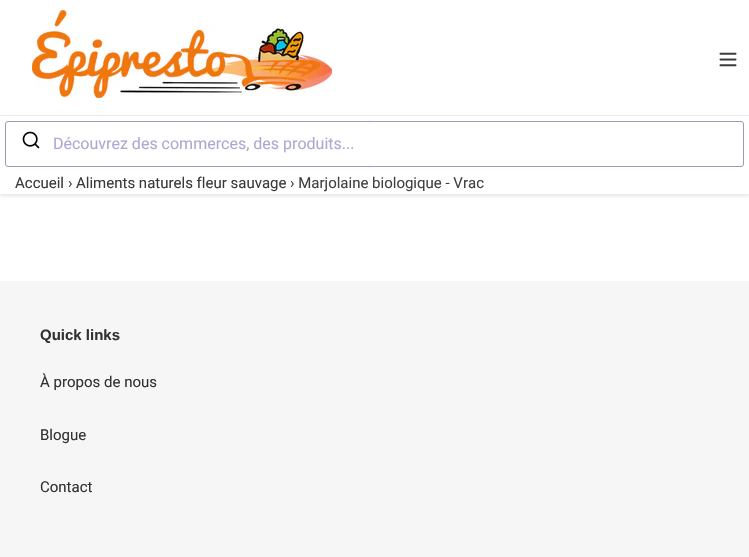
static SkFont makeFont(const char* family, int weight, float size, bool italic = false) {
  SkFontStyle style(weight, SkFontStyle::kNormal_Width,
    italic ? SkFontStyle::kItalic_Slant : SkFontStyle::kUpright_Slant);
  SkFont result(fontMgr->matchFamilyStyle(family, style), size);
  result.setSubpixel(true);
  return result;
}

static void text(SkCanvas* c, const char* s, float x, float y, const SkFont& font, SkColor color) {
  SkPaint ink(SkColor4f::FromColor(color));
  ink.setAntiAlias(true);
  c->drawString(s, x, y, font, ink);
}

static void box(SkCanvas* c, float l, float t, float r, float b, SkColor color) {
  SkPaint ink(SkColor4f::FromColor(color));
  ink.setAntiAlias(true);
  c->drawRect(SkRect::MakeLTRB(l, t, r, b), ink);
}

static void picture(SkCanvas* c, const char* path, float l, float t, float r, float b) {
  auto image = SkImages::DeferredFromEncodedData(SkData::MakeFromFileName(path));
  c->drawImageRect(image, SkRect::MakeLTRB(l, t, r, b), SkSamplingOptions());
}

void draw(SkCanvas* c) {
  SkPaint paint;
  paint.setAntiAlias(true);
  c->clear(0xffffffff);
  paint.setColor(0x1a000000);
  paint.setMaskFilter(SkMaskFilter::MakeBlur(kNormal_SkBlurStyle, 2));
  c->drawRect(SkRect::MakeLTRB(0, 2, 749, 196), paint);
  paint.setMaskFilter(nullptr);
  box(c, 0, 0, 749, 194, 0xffffffff);
  box(c, 0, 115, 749, 116, 0xffebebeb);
  picture(c, "img_01.png", 32, 10, 332, 98);
  picture(c, "img_02.png", 719, 52, 737, 67);
  paint.setStyle(SkPaint::kStroke_Style);
  paint.setStrokeWidth(1);
  paint.setColor(0xff9998b5);
  c->drawRoundRect(SkRect::MakeLTRB(5.5f, 121.5f, 743.5f, 166.5f), 2.5f, 2.5f, paint);
  picture(c, "img_03.png", 22, 131, 40, 149);
  SkFont face1 = makeFont("Roboto", 400, 16);
  text(c, "Découvrez des commerces, des produits...", 53, 149, face1, 0xffaba9d1);
  SkFont face2 = makeFont("Roboto", 400, 15);
  text(c, "Accueil", 15, 188, face2, 0xff3a3a3a);
  text(c, "›", 68, 188, face2, 0xff414141);
  text(c, "Aliments naturels fleur sauvage", 76, 188, face2, 0xff3a3a3a);
  text(c, "› Marjolaine biologique - Vrac", 290, 188, face2, 0xff414141);
  box(c, 0, 281, 749, 557, 0xfff6f6f6);
  SkFont face3 = makeFont("Liberation Sans", 700, 15);
  text(c, "Quick links", 40, 340, face3, 0xff333232);
  text(c, "À propos de nous", 40, 387, face2, 0xff333232);
  text(c, "Blogue", 40, 440, face2, 0xff333232);
  text(c, "Contact", 40, 492, face2, 0xff333232);
}
